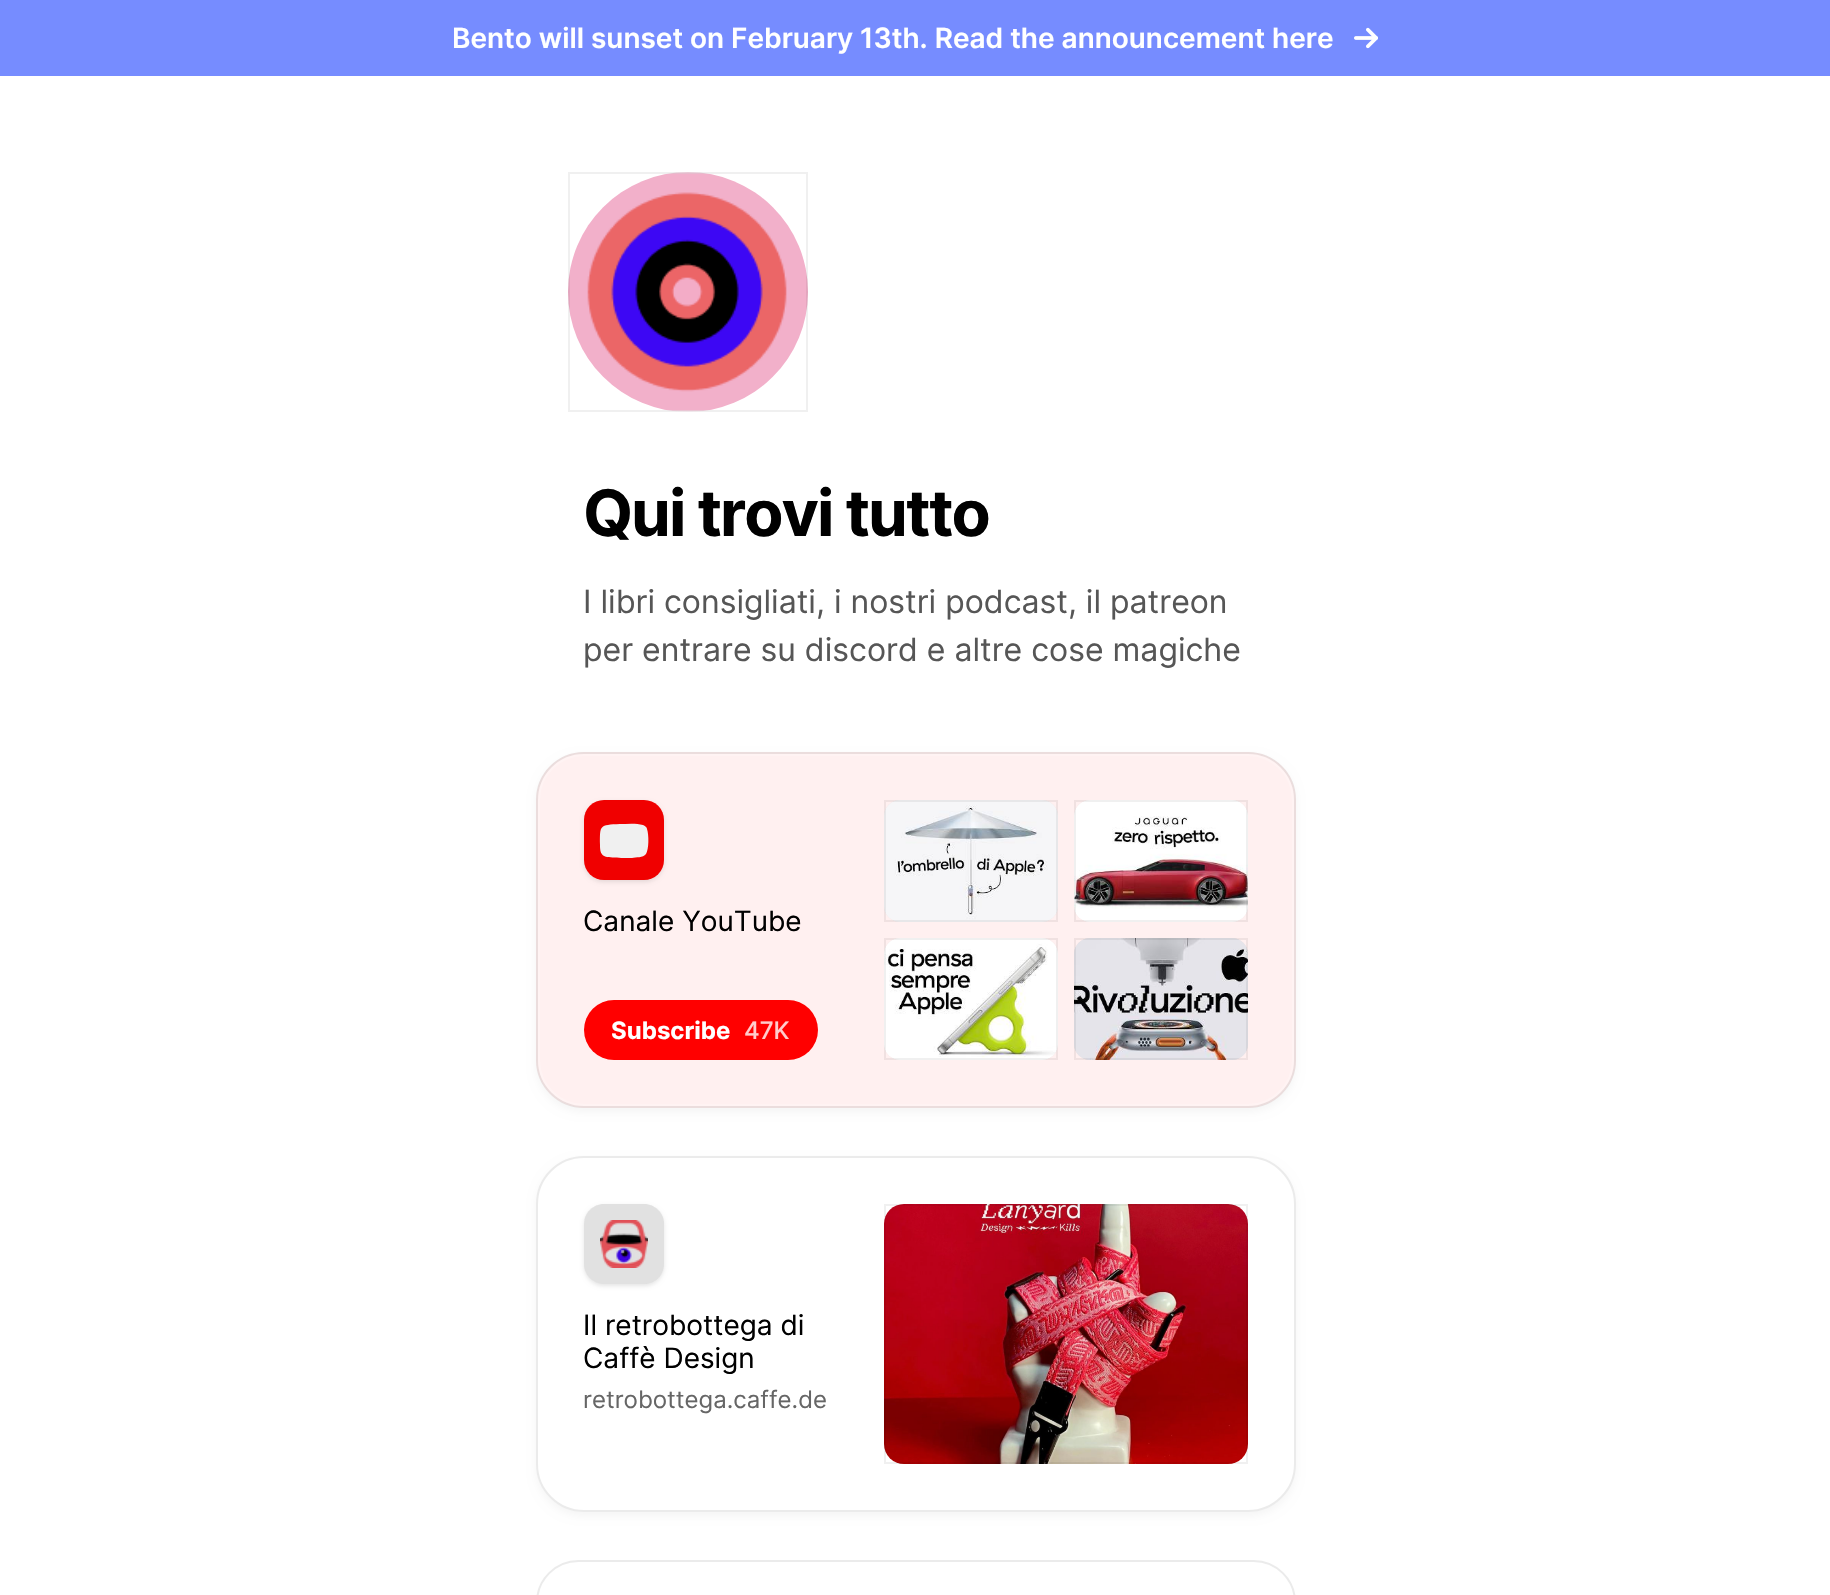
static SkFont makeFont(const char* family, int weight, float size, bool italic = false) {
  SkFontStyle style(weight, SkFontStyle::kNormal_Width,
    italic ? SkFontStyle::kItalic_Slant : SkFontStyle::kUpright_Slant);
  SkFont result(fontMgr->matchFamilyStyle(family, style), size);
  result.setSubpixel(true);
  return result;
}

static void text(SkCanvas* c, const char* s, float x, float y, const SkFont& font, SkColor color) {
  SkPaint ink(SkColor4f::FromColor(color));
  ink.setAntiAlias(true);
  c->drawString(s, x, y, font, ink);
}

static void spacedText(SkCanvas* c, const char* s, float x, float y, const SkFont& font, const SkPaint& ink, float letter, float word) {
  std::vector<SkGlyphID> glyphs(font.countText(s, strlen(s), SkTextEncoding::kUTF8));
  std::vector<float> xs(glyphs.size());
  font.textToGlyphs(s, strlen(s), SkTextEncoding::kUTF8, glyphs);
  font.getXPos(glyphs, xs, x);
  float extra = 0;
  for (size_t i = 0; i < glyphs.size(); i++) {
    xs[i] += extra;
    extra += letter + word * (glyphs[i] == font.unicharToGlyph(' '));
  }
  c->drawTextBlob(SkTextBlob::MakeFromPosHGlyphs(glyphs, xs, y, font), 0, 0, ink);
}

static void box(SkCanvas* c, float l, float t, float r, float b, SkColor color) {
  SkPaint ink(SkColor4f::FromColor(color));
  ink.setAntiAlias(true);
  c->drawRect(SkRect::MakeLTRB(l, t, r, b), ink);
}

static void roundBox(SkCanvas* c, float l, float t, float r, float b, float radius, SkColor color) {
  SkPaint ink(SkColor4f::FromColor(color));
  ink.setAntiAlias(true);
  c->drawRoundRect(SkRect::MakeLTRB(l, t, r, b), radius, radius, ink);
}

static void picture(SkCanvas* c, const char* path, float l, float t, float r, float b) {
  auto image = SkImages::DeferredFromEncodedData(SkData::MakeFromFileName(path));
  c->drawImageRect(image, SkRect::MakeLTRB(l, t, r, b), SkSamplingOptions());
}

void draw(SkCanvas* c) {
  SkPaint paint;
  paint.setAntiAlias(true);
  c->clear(0xffffffff);
  box(c, 0, 0, 1830, 76, 0xff768cff);
  SkFont face1 = makeFont("Inter", 600, 28);
  text(c, "Bento will sunset on February 13th. Read the announcement here", 452, 48, face1, 0xffffffff);
  picture(c, "img_01.png", 1354, 27, 1378, 49);
  picture(c, "img_02.png", 568, 172, 808, 412);
  paint.setStyle(SkPaint::kStroke_Style);
  paint.setStrokeWidth(2);
  paint.setColor(0x0f000000);
  c->drawRect(SkRect::MakeLTRB(569, 173, 807, 411), paint);
  SkFont face2 = makeFont("Inter", 700, 64);
  paint.setStyle(SkPaint::kFill_Style);
  paint.setColor(0xff000000);
  spacedText(c, "Qui trovi tutto", 583, 536, face2, paint, -2, 0);
  SkFont face3 = makeFont("Inter", 400, 32);
  text(c, "I libri consigliati, i nostri podcast, il patreon", 583, 613, face3, 0xff565656);
  text(c, "per entrare su discord e altre cose magiche", 583, 661, face3, 0xff565656);
  paint.setColor(0x0a000000);
  paint.setMaskFilter(SkMaskFilter::MakeBlur(kNormal_SkBlurStyle, 4));
  c->drawRoundRect(SkRect::MakeLTRB(536, 756, 1296, 1112), 48, 48, paint);
  paint.setMaskFilter(nullptr);
  roundBox(c, 536, 752, 1296, 1108, 48, 0xfffff0f0);
  paint.setColor(0x1a000000);
  paint.setMaskFilter(SkMaskFilter::MakeBlur(kNormal_SkBlurStyle, 2));
  c->drawRoundRect(SkRect::MakeLTRB(584, 802, 664, 882), 20, 20, paint);
  paint.setMaskFilter(nullptr);
  roundBox(c, 584, 800, 664, 880, 20, 0xffff0000);
  paint.setColor(0xffffffff);
  c->drawPath(SkPathBuilder().moveTo(643, 825).cubicTo(645, 826, 647, 827, 647, 829).cubicTo(649, 835, 649, 849, 646, 854).cubicTo(643, 858, 636, 857, 632, 858).cubicTo(626, 858, 607, 858, 604, 856).cubicTo(600, 854, 600, 848, 600, 845).cubicTo(600, 825, 599, 825, 620, 824).cubicTo(627, 824, 636, 823, 643, 825).close().detach(), paint);
  paint.setColor(0x0f000000);
  c->drawPath(SkPathBuilder().moveTo(604, 800).lineTo(644, 800).cubicTo(655, 800, 664, 809, 664, 820).lineTo(664, 860).cubicTo(664, 871, 655, 880, 644, 880).lineTo(604, 880).cubicTo(593, 880, 584, 871, 584, 860).lineTo(584, 820).cubicTo(584, 809, 593, 800, 604, 800).close().detach(), paint);
  roundBox(c, 584, 1000, 818, 1060, 30, 0xffff0000);
  roundBox(c, 884, 800, 1058, 922, 16, 0xfff0e2e2);
  picture(c, "img_03.png", 884, 800, 1058, 922);
  paint.setStyle(SkPaint::kStroke_Style);
  c->drawRect(SkRect::MakeLTRB(885, 801, 1057, 921), paint);
  roundBox(c, 1074, 800, 1248, 922, 16, 0xfff0e2e2);
  picture(c, "img_04.png", 1074, 800, 1248, 922);
  c->drawRect(SkRect::MakeLTRB(1075, 801, 1247, 921), paint);
  roundBox(c, 884, 938, 1058, 1060, 16, 0xfff0e2e2);
  picture(c, "img_05.png", 884, 938, 1058, 1060);
  c->drawRect(SkRect::MakeLTRB(885, 939, 1057, 1059), paint);
  roundBox(c, 1074, 938, 1248, 1060, 16, 0xfff0e2e2);
  picture(c, "img_06.png", 1074, 938, 1248, 1060);
  c->drawRect(SkRect::MakeLTRB(1075, 939, 1247, 1059), paint);
  paint.setColor(0x14000000);
  c->drawRoundRect(SkRect::MakeLTRB(537, 753, 1295, 1107), 47, 47, paint);
  paint.setColor(0x38ffffff);
  c->drawRoundRect(SkRect::MakeLTRB(539, 755, 1293, 1105), 45, 45, paint);
  SkFont face4 = makeFont("Inter", 400, 28);
  text(c, "Canale YouTube", 583, 931, face4, 0xff000000);
  SkFont face5 = makeFont("Inter", 700, 24);
  text(c, "Subscribe", 611, 1039, face5, 0xffffffff);
  SkFont face6 = makeFont("Inter", 500, 24);
  text(c, "47K", 744, 1039, face6, 0xffffcccc);
  paint.setStyle(SkPaint::kFill_Style);
  paint.setColor(0x0a000000);
  paint.setMaskFilter(SkMaskFilter::MakeBlur(kNormal_SkBlurStyle, 4));
  c->drawRoundRect(SkRect::MakeLTRB(536, 1160, 1296, 1516), 48, 48, paint);
  paint.setMaskFilter(nullptr);
  roundBox(c, 536, 1156, 1296, 1512, 48, 0xffffffff);
  c->save();
  c->clipPath(SkPathBuilder(SkPathFillType::kEvenOdd).moveTo(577, 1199).lineTo(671, 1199).lineTo(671, 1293).lineTo(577, 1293).close().moveTo(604, 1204).lineTo(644, 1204).cubicTo(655, 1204, 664, 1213, 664, 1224).lineTo(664, 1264).cubicTo(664, 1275, 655, 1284, 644, 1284).lineTo(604, 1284).cubicTo(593, 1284, 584, 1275, 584, 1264).lineTo(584, 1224).cubicTo(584, 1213, 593, 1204, 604, 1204).close().detach(), true);
  paint.setColor(0x1a000000);
  paint.setMaskFilter(SkMaskFilter::MakeBlur(kNormal_SkBlurStyle, 2));
  c->drawRoundRect(SkRect::MakeLTRB(584, 1206, 664, 1286), 20, 20, paint);
  paint.setMaskFilter(nullptr);
  c->restore();
  picture(c, "img_07.png", 600, 1220, 648, 1268);
  paint.setColor(0x0f000000);
  c->drawPath(SkPathBuilder().moveTo(604, 1204).lineTo(644, 1204).cubicTo(655, 1204, 664, 1213, 664, 1224).lineTo(664, 1264).cubicTo(664, 1275, 655, 1284, 644, 1284).lineTo(604, 1284).cubicTo(593, 1284, 584, 1275, 584, 1264).lineTo(584, 1224).cubicTo(584, 1213, 593, 1204, 604, 1204).close().detach(), paint);
  c->drawPath(SkPathBuilder().moveTo(604, 1204).lineTo(644, 1204).cubicTo(655, 1204, 664, 1213, 664, 1224).lineTo(664, 1264).cubicTo(664, 1275, 655, 1284, 644, 1284).lineTo(604, 1284).cubicTo(593, 1284, 584, 1275, 584, 1264).lineTo(584, 1224).cubicTo(584, 1213, 593, 1204, 604, 1204).close().detach(), paint);
  picture(c, "img_08.png", 884, 1204, 1248, 1464);
  paint.setStyle(SkPaint::kStroke_Style);
  c->drawRect(SkRect::MakeLTRB(885, 1205, 1247, 1463), paint);
  paint.setColor(0xffebebeb);
  c->drawRoundRect(SkRect::MakeLTRB(537, 1157, 1295, 1511), 47, 47, paint);
  text(c, "Il retrobottega di", 583, 1335, face4, 0xff000000);
  text(c, "Caffè Design", 583, 1368, face4, 0xff000000);
  SkFont face7 = makeFont("Inter", 400, 24);
  text(c, "retrobottega.caffe.de", 583, 1408, face7, 0xff666666);
  c->drawRoundRect(SkRect::MakeLTRB(537, 1561, 1295, 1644), 47, 47, paint);
}
